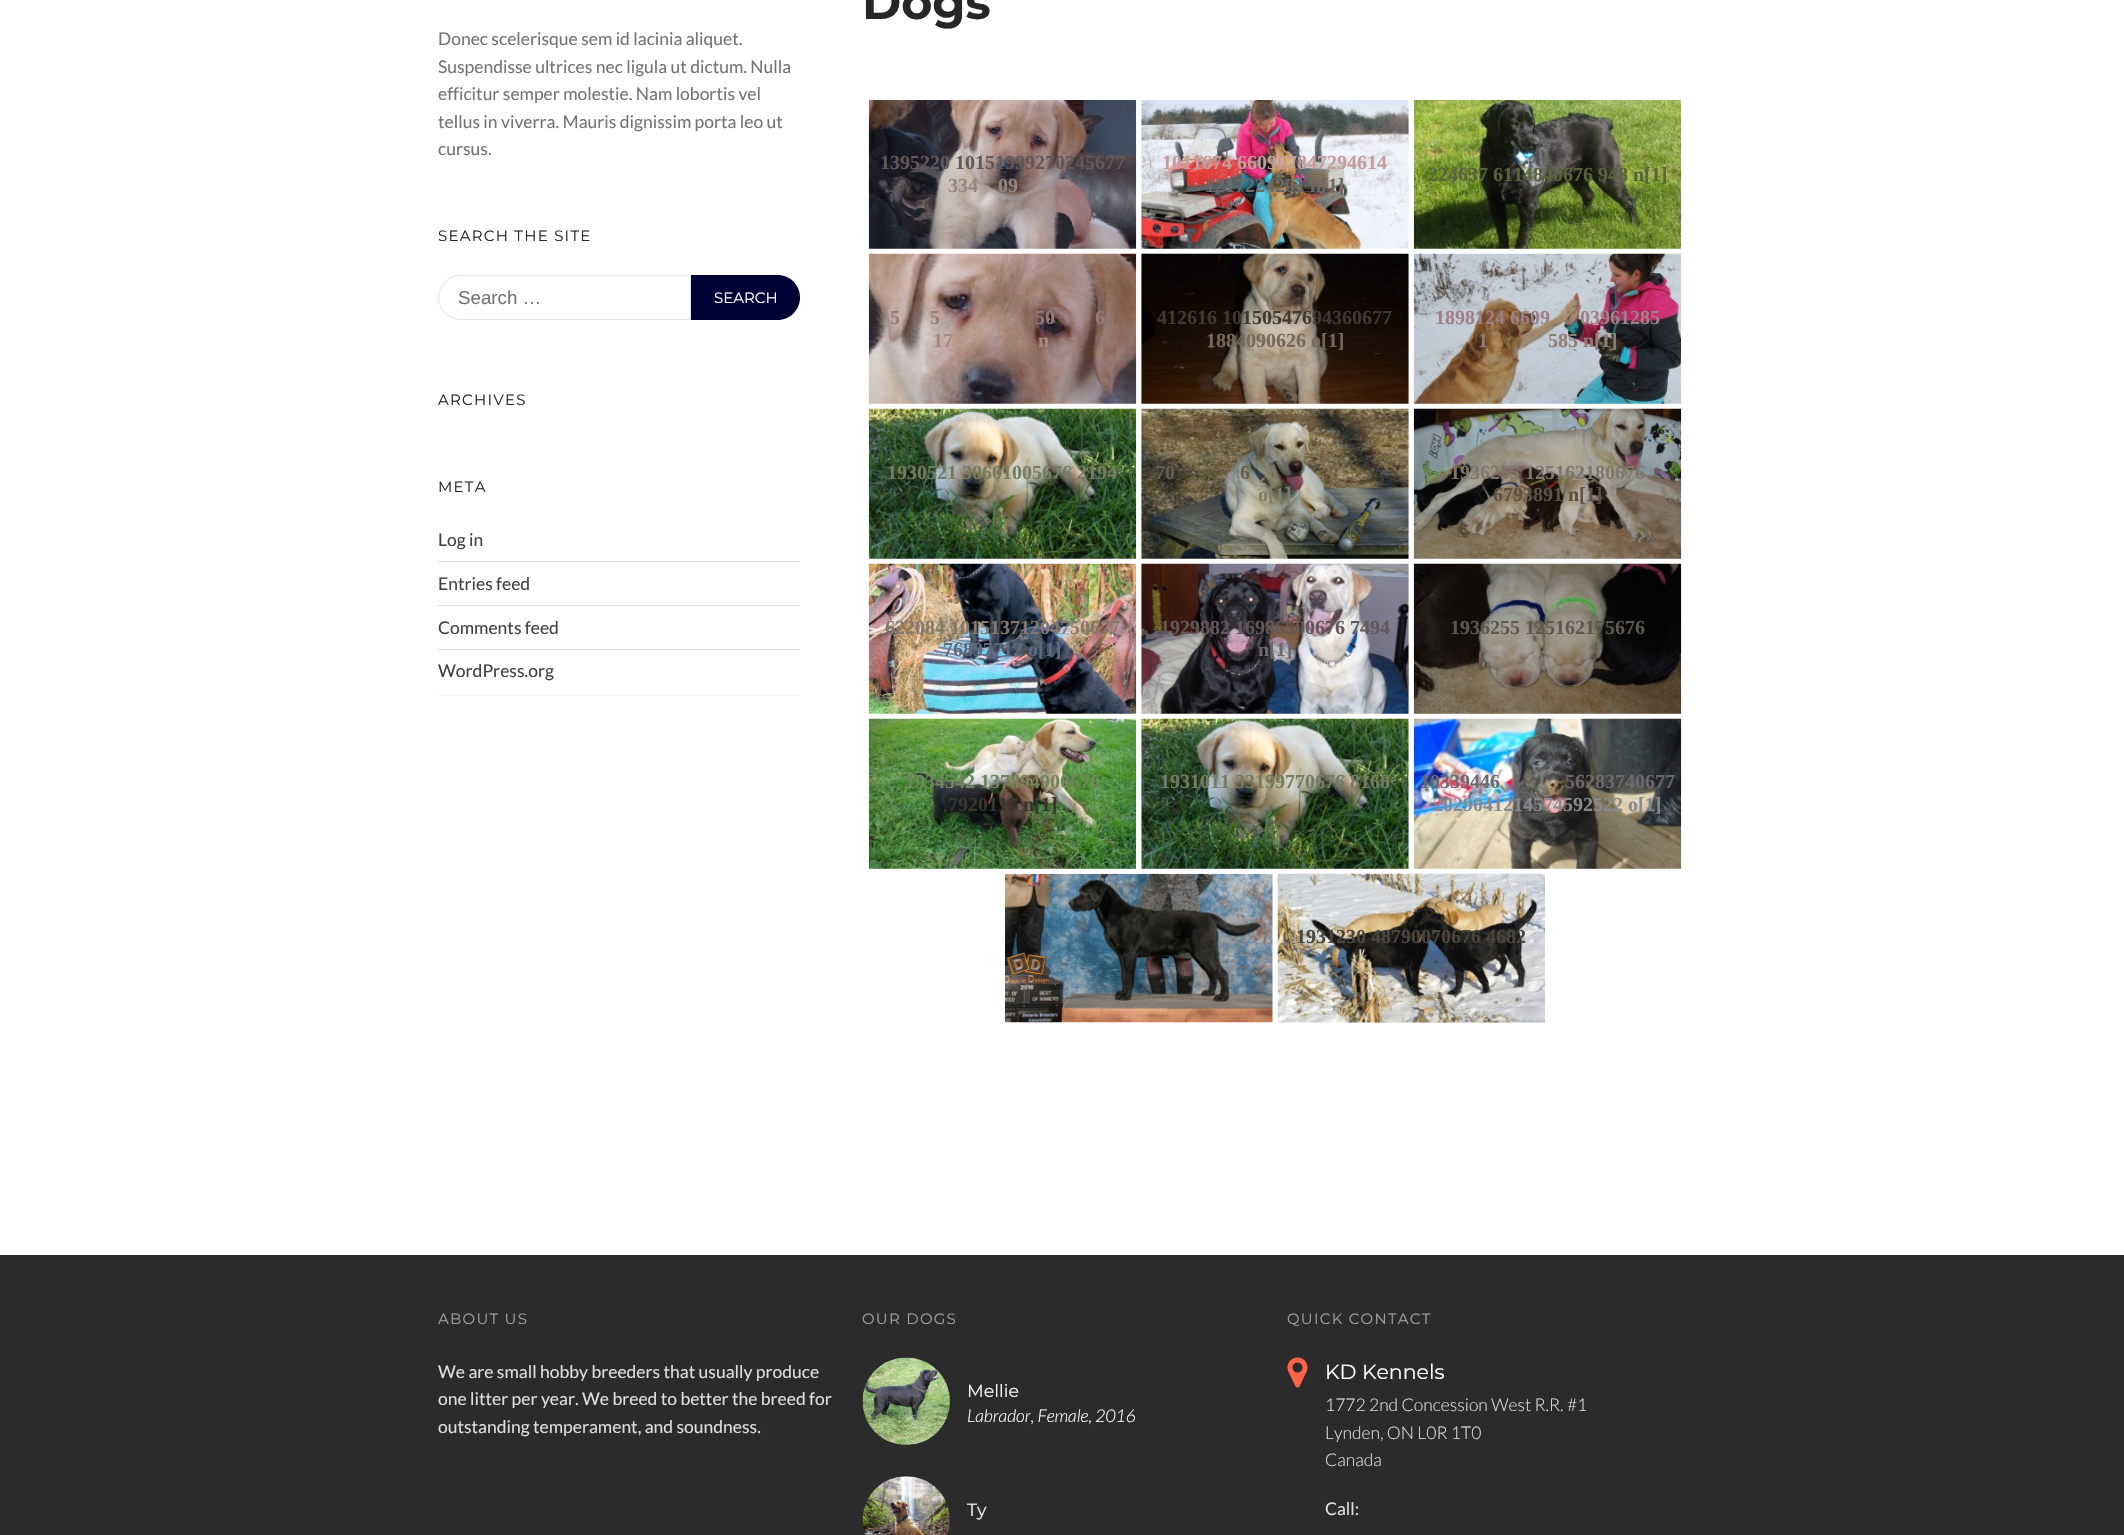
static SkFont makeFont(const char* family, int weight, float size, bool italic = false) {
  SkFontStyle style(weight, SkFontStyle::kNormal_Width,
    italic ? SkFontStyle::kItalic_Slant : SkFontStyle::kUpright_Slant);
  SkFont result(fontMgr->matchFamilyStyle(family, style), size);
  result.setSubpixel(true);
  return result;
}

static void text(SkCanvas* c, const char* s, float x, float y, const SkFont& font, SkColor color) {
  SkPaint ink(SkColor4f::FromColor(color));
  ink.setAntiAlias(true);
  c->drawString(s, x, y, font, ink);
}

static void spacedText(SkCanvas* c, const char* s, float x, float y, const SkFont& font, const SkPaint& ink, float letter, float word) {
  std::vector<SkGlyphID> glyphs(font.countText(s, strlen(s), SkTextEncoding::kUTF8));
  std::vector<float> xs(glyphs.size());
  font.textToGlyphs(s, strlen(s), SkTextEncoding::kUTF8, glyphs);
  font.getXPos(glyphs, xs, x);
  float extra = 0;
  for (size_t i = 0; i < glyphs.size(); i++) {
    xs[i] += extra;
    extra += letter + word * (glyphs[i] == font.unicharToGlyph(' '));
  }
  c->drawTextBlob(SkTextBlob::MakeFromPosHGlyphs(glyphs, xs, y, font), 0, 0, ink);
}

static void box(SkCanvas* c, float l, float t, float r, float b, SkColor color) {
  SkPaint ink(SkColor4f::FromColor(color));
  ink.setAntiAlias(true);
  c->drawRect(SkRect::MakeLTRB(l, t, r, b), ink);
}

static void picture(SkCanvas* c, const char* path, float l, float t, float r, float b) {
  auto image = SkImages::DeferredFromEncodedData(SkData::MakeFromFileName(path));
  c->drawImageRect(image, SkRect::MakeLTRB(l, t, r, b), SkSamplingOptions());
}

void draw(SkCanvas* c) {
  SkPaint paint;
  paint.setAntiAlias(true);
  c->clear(0xffffffff);
  SkFont face1 = makeFont("Lato", 400, 17.5f);
  text(c, "Donec scelerisque sem id lacinia aliquet.", 438, 45, face1, 0xff737373);
  text(c, "Suspendisse ultrices nec ligula ut dictum. Nulla", 438, 73, face1, 0xff737373);
  text(c, "efficitur semper molestie. Nam lobortis vel", 438, 100, face1, 0xff737373);
  text(c, "tellus in viverra. Mauris dignissim porta leo ut", 438, 128, face1, 0xff737373);
  text(c, "cursus.", 438, 155, face1, 0xff737373);
  SkFont face2 = makeFont("Montserrat", 400, 15);
  paint.setColor(0xff262626);
  spacedText(c, "SEARCH THE SITE", 438, 241, face2, paint, 1.25f, 0);
  paint.setStyle(SkPaint::kStroke_Style);
  paint.setStrokeWidth(1);
  paint.setColor(0xffe6e6e6);
  c->drawPath(SkPathBuilder().moveTo(460.5f, 275.5f).lineTo(690.5f, 275.5f).lineTo(690.5f, 319.5f).lineTo(460.5f, 319.5f).cubicTo(448.5f, 319.5f, 438.5f, 309.5f, 438.5f, 297.5f).cubicTo(438.5f, 285.5f, 448.5f, 275.5f, 460.5f, 275.5f).close().detach(), paint);
  SkFont face3 = makeFont("Liberation Sans", 400, 18.75f);
  text(c, "Search …", 458, 304, face3, 0xff737373);
  paint.setStyle(SkPaint::kFill_Style);
  paint.setColor(0xff000134);
  c->drawPath(SkPathBuilder().moveTo(691, 275).lineTo(777.5f, 275).cubicTo(790, 275, 800, 285, 800, 297.5f).cubicTo(800, 310, 790, 320, 777.5f, 320).lineTo(691, 320).close().detach(), paint);
  text(c, "SEARCH", 714, 303, face2, 0xffffffff);
  paint.setColor(0xff262626);
  spacedText(c, "ARCHIVES", 438, 405, face2, paint, 1.25f, 0);
  spacedText(c, "META", 438, 492, face2, paint, 1.25f, 0);
  box(c, 438, 561, 800, 562, 0xffe0e0e0);
  text(c, "Log in", 438, 546, face1, 0xff404040);
  box(c, 438, 605, 800, 606, 0xffe0e0e0);
  text(c, "Entries feed", 438, 590, face1, 0xff404040);
  box(c, 438, 649, 800, 650, 0xffe0e0e0);
  text(c, "Comments feed", 438, 634, face1, 0xff404040);
  box(c, 438, 695, 800, 696, 0xfff2f2f2);
  text(c, "WordPress.org", 438, 677, face1, 0xff404040);
  SkFont face4 = makeFont("Montserrat", 700, 47.5f);
  text(c, "Dogs", 862, 19, face4, 0xff262626);
  picture(c, "img_01.png", 868, 100, 1137, 249);
  SkFont face5 = makeFont("Liberation Serif", 700, 20);
  text(c, "1395220 10151999270245677", 880, 169, face5, 0xff625759);
  text(c, "334", 948, 192, face5, 0xff958681);
  text(c, "09", 998, 192, face5, 0xff958681);
  picture(c, "img_02.png", 1141, 100, 1409, 249);
  text(c, "1011674 660967847294614", 1162, 169, face5, 0xffc39c9e);
  text(c, "1217224201 n[1]", 1205, 192, face5, 0xff6a6a66);
  picture(c, "img_03.png", 1413, 100, 1682, 249);
  text(c, "224637 6114840676 948 n[1]", 1428, 181, face5, 0xff5a643b);
  picture(c, "img_04.png", 868, 253, 1137, 404);
  text(c, "5", 890, 324, face5, 0xff967a73);
  text(c, "5", 930, 324, face5, 0xff967a73);
  text(c, "50", 1035, 324, face5, 0xff967a73);
  text(c, "6", 1095, 324, face5, 0xff967a73);
  text(c, "17", 933, 347, face5, 0xffa6887f);
  text(c, "n", 1038, 347, face5, 0xffa6887f);
  picture(c, "img_05.png", 1141, 253, 1409, 404);
  text(c, "412616 10150547694360677", 1157, 324, face5, 0xff42382f);
  text(c, "1884090626 o[1]", 1206, 347, face5, 0xff77695a);
  picture(c, "img_06.png", 1413, 253, 1682, 404);
  text(c, "1898124 6609", 1435, 324, face5, 0xff9f8085);
  text(c, "03961285", 1580, 324, face5, 0xff9f8085);
  text(c, "1", 1478, 347, face5, 0xff8e7e74);
  text(c, "585 n[1]", 1548, 347, face5, 0xff8e7e74);
  picture(c, "img_07.png", 868, 408, 1137, 559);
  text(c, "1930521 30601005676 2194", 887, 479, face5, 0xff757c64);
  picture(c, "img_08.png", 1141, 408, 1409, 559);
  text(c, "70", 1155, 479, face5, 0xff645e4e);
  text(c, "6", 1240, 479, face5, 0xff645e4e);
  text(c, "o[1]", 1258, 501, face5, 0xff7f7e6b);
  picture(c, "img_09.png", 1413, 408, 1682, 559);
  text(c, "1936255 125162180676", 1450, 479, face5, 0xff7e776b);
  text(c, "6793891 n[1]", 1493, 501, face5, 0xff5e5144);
  picture(c, "img_10.png", 868, 563, 1137, 714);
  text(c, "622084 10151371204750677", 885, 634, face5, 0xff85796e);
  text(c, "76897712 o[1]", 943, 656, face5, 0xff596b7e);
  picture(c, "img_11.png", 1141, 563, 1409, 714);
  text(c, "1929882 16986500676 7494", 1160, 634, face5, 0xff625759);
  text(c, "n[1]", 1258, 656, face5, 0xff6d686e);
  picture(c, "img_12.png", 1413, 563, 1682, 714);
  text(c, "1936255 125162175676", 1450, 634, face5, 0xff5c5850);
  picture(c, "img_13.png", 868, 718, 1137, 869);
  text(c, "1934542 137894900676", 905, 788, face5, 0xff72845f);
  text(c, "7920117 n[1]", 948, 811, face5, 0xff36382d);
  picture(c, "img_14.png", 1141, 718, 1409, 869);
  text(c, "1931011 33199770676 8168", 1160, 788, face5, 0xff757c64);
  picture(c, "img_15.png", 1413, 718, 1682, 869);
  text(c, "10339446", 1420, 788, face5, 0xff6d686e);
  text(c, "56283740677", 1565, 788, face5, 0xff6d686e);
  text(c, "2029041214574592522 o[1]", 1433, 811, face5, 0xff878b8e);
  picture(c, "img_16.png", 1005, 873, 1273, 1023);
  picture(c, "img_17.png", 1277, 873, 1545, 1023);
  text(c, "1931230 48790070676 4682", 1296, 943, face5, 0xff4a463f);
  box(c, 0, 1255, 2124, 1535, 0xff2b2b2b);
  paint.setColor(0xffa0a0a0);
  spacedText(c, "ABOUT US", 438, 1324, face2, paint, 1.25f, 0);
  text(c, "We are small hobby breeders that usually produce", 438, 1378, face1, 0xffdfdfdf);
  text(c, "one litter per year. We breed to better the breed for", 438, 1405, face1, 0xffdfdfdf);
  text(c, "outstanding temperament, and soundness.", 438, 1433, face1, 0xffdfdfdf);
  spacedText(c, "OUR DOGS", 862, 1324, face2, paint, 1.25f, 0);
  picture(c, "img_18.png", 862, 1357, 950, 1445);
  SkFont face6 = makeFont("Montserrat", 400, 17.5f);
  text(c, "Mellie", 967, 1397, face6, 0xfff4f4f4);
  SkFont face7 = makeFont("Lato", 300, 17.5f, true);
  text(c, "Labrador, Female, 2016", 967, 1422, face7, 0xffffffff);
  picture(c, "img_19.png", 862, 1476, 950, 1535);
  text(c, "Ty", 967, 1516, face6, 0xfff4f4f4);
  spacedText(c, "QUICK CONTACT", 1287, 1324, face2, paint, 1.25f, 0);
  picture(c, "img_20.png", 1287, 1357, 1308, 1388);
  SkFont face8 = makeFont("Montserrat", 400, 20.5f);
  text(c, "KD Kennels", 1325, 1379, face8, 0xffffffff);
  SkFont face9 = makeFont("Lato", 300, 17.5f);
  text(c, "1772 2nd Concession West R.R. #1", 1325, 1411, face9, 0xffdfdfdf);
  text(c, "Lynden, ON L0R 1T0", 1325, 1439, face9, 0xffdfdfdf);
  text(c, "Canada", 1325, 1466, face9, 0xffdfdfdf);
  text(c, "Call:", 1325, 1515, face1, 0xffdfdfdf);
}
